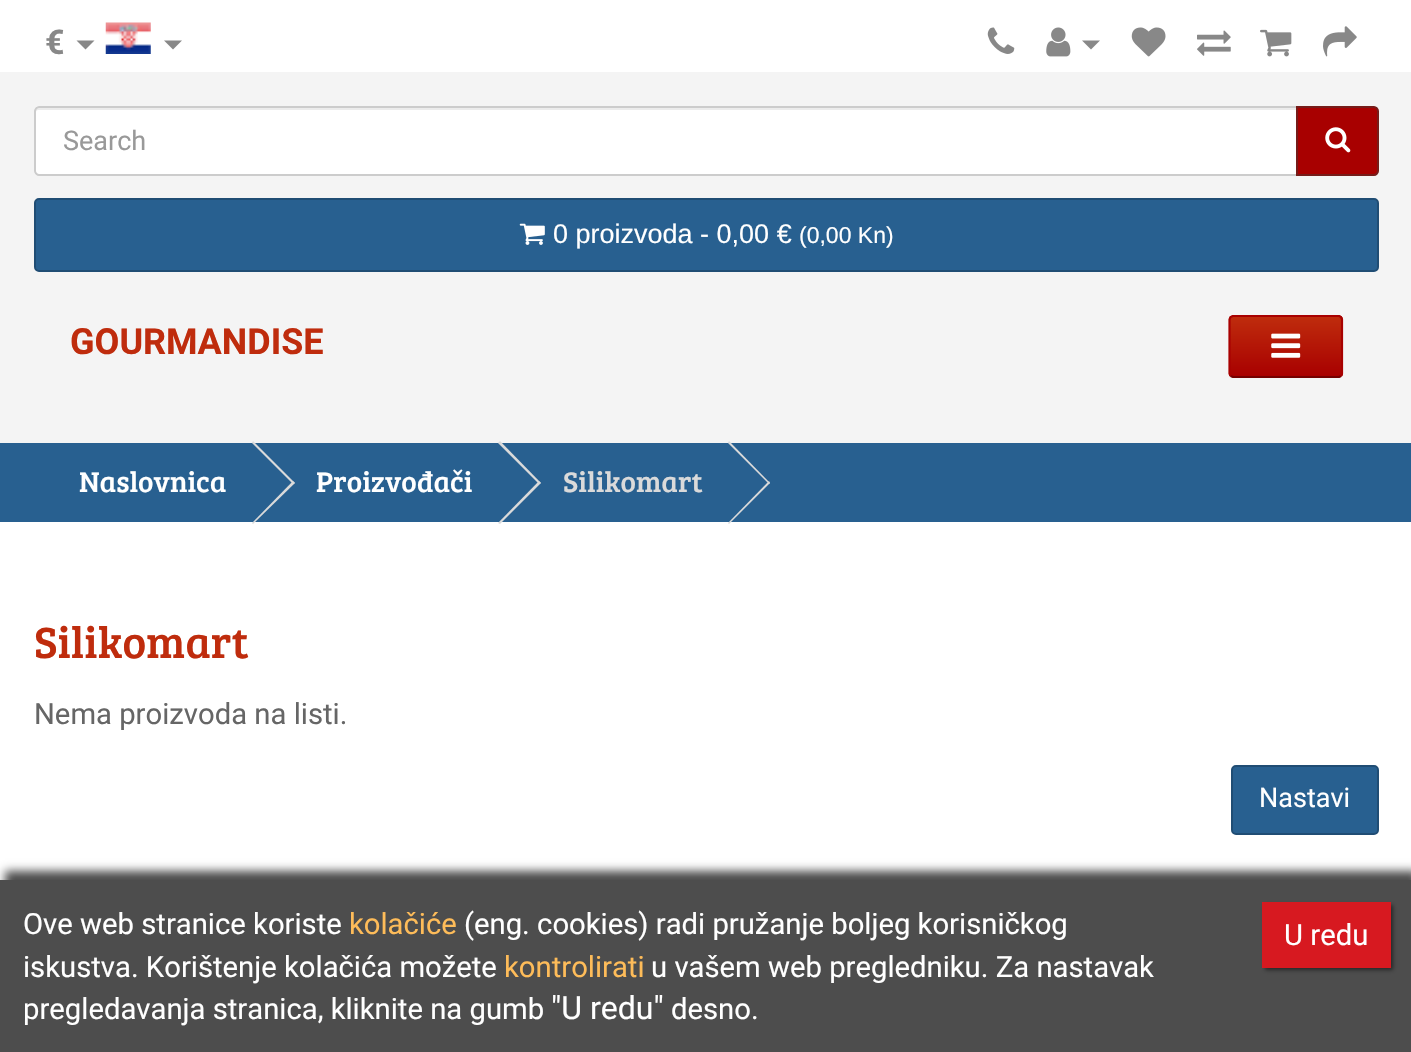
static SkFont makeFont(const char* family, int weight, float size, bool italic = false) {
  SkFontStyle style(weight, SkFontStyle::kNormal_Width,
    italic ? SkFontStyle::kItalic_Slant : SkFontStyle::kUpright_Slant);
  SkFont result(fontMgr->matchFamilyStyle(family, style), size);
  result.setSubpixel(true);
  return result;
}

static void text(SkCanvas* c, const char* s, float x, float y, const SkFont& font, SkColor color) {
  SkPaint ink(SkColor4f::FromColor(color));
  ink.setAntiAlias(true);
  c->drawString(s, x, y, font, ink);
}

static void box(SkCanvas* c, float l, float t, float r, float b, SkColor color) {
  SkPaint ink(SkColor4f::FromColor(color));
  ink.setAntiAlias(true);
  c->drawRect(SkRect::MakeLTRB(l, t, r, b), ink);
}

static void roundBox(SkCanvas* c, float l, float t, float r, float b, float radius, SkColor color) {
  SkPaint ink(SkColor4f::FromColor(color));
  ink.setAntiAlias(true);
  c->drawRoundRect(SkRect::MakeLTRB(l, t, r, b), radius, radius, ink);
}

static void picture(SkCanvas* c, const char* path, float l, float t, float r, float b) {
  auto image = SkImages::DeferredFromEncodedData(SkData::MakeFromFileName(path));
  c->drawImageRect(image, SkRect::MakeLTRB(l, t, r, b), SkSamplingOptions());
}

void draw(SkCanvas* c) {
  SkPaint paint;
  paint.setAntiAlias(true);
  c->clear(0xffffffff);
  SkFont face1 = makeFont("Roboto", 700, 34);
  text(c, "€", 45, 54, face1, 0xff888888);
  paint.setColor(0xff888888);
  c->drawPath(SkPathBuilder().moveTo(76.5f, 40.5f).lineTo(94.5f, 40.5f).lineTo(85.5f, 49.5f).close().detach(), paint);
  picture(c, "img_01.png", 105, 22, 151, 54);
  c->drawPath(SkPathBuilder().moveTo(164, 40.5f).lineTo(182, 40.5f).lineTo(173, 49.5f).close().detach(), paint);
  picture(c, "img_02.png", 987, 27, 1015, 54);
  picture(c, "img_03.png", 1046, 27, 1071, 57);
  c->drawPath(SkPathBuilder().moveTo(1082, 40.5f).lineTo(1100, 40.5f).lineTo(1091, 49.5f).close().detach(), paint);
  picture(c, "img_04.png", 1131, 27, 1166, 57);
  picture(c, "img_05.png", 1197, 30, 1231, 56);
  picture(c, "img_06.png", 1260, 29, 1292, 57);
  picture(c, "img_07.png", 1323, 26, 1357, 57);
  box(c, 0, 72, 1411, 443, 0xfff4f4f4);
  paint.setColor(0xffffffff);
  c->drawPath(SkPathBuilder().moveTo(39, 106).lineTo(1298, 106).lineTo(1298, 176).lineTo(39, 176).cubicTo(36, 176, 34, 174, 34, 171).lineTo(34, 111).cubicTo(34, 108, 36, 106, 39, 106).close().detach(), paint);
  paint.setColor(0xffececec);
  c->drawPath(SkPathBuilder().moveTo(38, 110).lineTo(1296, 110).lineTo(1296, 108).lineTo(38, 108).cubicTo(36, 108, 36, 110, 36, 112).cubicTo(36, 111, 37, 110, 38, 110).close().detach(), paint);
  paint.setStyle(SkPaint::kStroke_Style);
  paint.setStrokeWidth(2);
  paint.setColor(0xffcccccc);
  c->drawPath(SkPathBuilder().moveTo(39, 107).lineTo(1297, 107).lineTo(1297, 175).lineTo(39, 175).cubicTo(37, 175, 35, 173, 35, 171).lineTo(35, 111).cubicTo(35, 109, 37, 107, 39, 107).close().detach(), paint);
  SkFont face2 = makeFont("Roboto", 400, 27);
  text(c, "Search", 63, 150, face2, 0xff999999);
  paint.setStyle(SkPaint::kFill_Style);
  paint.setColor(0xffa80000);
  c->drawPath(SkPathBuilder().moveTo(1297, 107).lineTo(1374, 107).cubicTo(1376, 107, 1378, 109, 1378, 111).lineTo(1378, 171).cubicTo(1378, 173, 1376, 175, 1374, 175).lineTo(1297, 175).close().detach(), paint);
  paint.setStyle(SkPaint::kStroke_Style);
  paint.setColor(0xff761c19);
  c->drawPath(SkPathBuilder().moveTo(1297, 107).lineTo(1374, 107).cubicTo(1376, 107, 1378, 109, 1378, 111).lineTo(1378, 171).cubicTo(1378, 173, 1376, 175, 1374, 175).lineTo(1297, 175).close().detach(), paint);
  picture(c, "img_08.png", 1325, 127, 1351, 153);
  paint.setStyle(SkPaint::kFill_Style);
  paint.setColor(0xff286090);
  c->drawRoundRect(SkRect::MakeLTRB(35, 199, 1378, 271), 4, 4, paint);
  paint.setStyle(SkPaint::kStroke_Style);
  paint.setColor(0xff204d74);
  c->drawRoundRect(SkRect::MakeLTRB(35, 199, 1378, 271), 4, 4, paint);
  picture(c, "img_09.png", 519, 223, 545, 245);
  SkFont face3 = makeFont("Liberation Sans", 400, 27);
  text(c, "0 proizvoda - 0,00 €", 553, 243, face3, 0xffffffff);
  SkFont face4 = makeFont("Liberation Sans", 400, 23);
  text(c, "(0,00 Kn)", 799, 243, face4, 0xffffffff);
  SkFont face5 = makeFont("Roboto", 700, 36);
  text(c, "GOURMANDISE", 70, 354, face5, 0xffbf2c0d);
  roundBox(c, 1229, 315, 1343, 378, 5, 0xffa80000);
  c->save();
  c->clipPath(SkPathBuilder().moveTo(1234, 315).lineTo(1338, 315).cubicTo(1341, 315, 1343, 317, 1343, 320).lineTo(1343, 373).cubicTo(1343, 376, 1341, 378, 1338, 378).lineTo(1234, 378).cubicTo(1231, 378, 1229, 376, 1229, 373).lineTo(1229, 320).cubicTo(1229, 317, 1231, 315, 1234, 315).close().detach(), true);
  paint.setStyle(SkPaint::kFill_Style);
  {
    const SkColor colors[] = {0xffbf2c0d, 0xffa80000};
    const float stops[] = {0, 1};
    const SkPoint ends[] = {{1286, 317}, {1286, 376}};
    paint.setShader(SkGradientShader::MakeLinear(ends, colors, stops, 2, SkTileMode::kClamp));
    paint.setAlpha(255);
  }
  c->drawRect(SkRect::MakeLTRB(1229, 317, 1343, 376), paint);
  c->restore();
  paint.setStyle(SkPaint::kStroke_Style);
  paint.setStrokeWidth(2.2f);
  paint.setShader(nullptr);
  paint.setColor(0xff750000);
  c->drawPath(SkPathBuilder().moveTo(1341, 376).lineTo(1339, 377).lineTo(1250.5f, 377).lineTo(1233, 377).lineTo(1230.5f, 376).detach(), paint);
  paint.setColor(0xffa80000);
  c->drawPath(SkPathBuilder().moveTo(1230.5f, 376).lineTo(1229.5f, 373.5f).lineTo(1229.5f, 319.5f).lineTo(1230.5f, 317).lineTo(1233, 316).lineTo(1339, 316).lineTo(1341, 317).lineTo(1342, 319.5f).lineTo(1342, 373.5f).lineTo(1341, 376).detach(), paint);
  picture(c, "img_10.png", 1271, 333, 1301, 358);
  box(c, 0, 443, 1411, 522, 0xff286090);
  SkFont face6 = makeFont("Bree Serif", 400, 29.25f);
  text(c, "Naslovnica", 79, 492, face6, 0xffffffff);
  paint.setStyle(SkPaint::kFill_Style);
  paint.setColor(0xffdadada);
  c->drawPath(SkPathBuilder().moveTo(252, 443).lineTo(253, 441).lineTo(295, 483).lineTo(293, 484).close().detach(), paint);
  c->drawPath(SkPathBuilder().moveTo(252, 523).lineTo(293, 481).lineTo(295, 483).lineTo(253, 524).close().detach(), paint);
  text(c, "Proizvođači", 316, 492, face6, 0xffffffff);
  c->drawPath(SkPathBuilder().moveTo(498, 443).lineTo(500, 441).lineTo(541, 483).lineTo(539, 484).close().detach(), paint);
  c->drawPath(SkPathBuilder().moveTo(498, 523).lineTo(539, 481).lineTo(541, 483).lineTo(500, 524).close().detach(), paint);
  text(c, "Silikomart", 563, 492, face6, 0xffdadada);
  c->drawPath(SkPathBuilder().moveTo(728, 443).lineTo(729, 441).lineTo(770, 483).lineTo(769, 484).close().detach(), paint);
  c->drawPath(SkPathBuilder().moveTo(728, 523).lineTo(769, 481).lineTo(770, 483).lineTo(729, 524).close().detach(), paint);
  SkFont face7 = makeFont("Bree Serif", 400, 45);
  text(c, "Silikomart", 34, 658, face7, 0xffbf2c0d);
  SkFont face8 = makeFont("Roboto", 400, 29.25f);
  text(c, "Nema proizvoda na listi.", 34, 724, face8, 0xff666666);
  paint.setColor(0xff286090);
  c->drawRoundRect(SkRect::MakeLTRB(1232, 766, 1378, 834), 4, 4, paint);
  paint.setStyle(SkPaint::kStroke_Style);
  paint.setStrokeWidth(2);
  paint.setColor(0xff204d74);
  c->drawRoundRect(SkRect::MakeLTRB(1232, 766, 1378, 834), 4, 4, paint);
  text(c, "Nastavi", 1259, 807, face2, 0xffffffff);
  paint.setStyle(SkPaint::kFill_Style);
  paint.setColor(0xb3000000);
  paint.setMaskFilter(SkMaskFilter::MakeBlur(kNormal_SkBlurStyle, 4.5f));
  c->drawRect(SkRect::MakeLTRB(5, 871, 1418, 1044), paint);
  paint.setMaskFilter(nullptr);
  box(c, 0, 880, 1411, 1052, 0xff4d4d4d);
  text(c, "Ove web stranice koriste", 23, 934, face8, 0xffffffff);
  text(c, "kolačiće", 349, 934, face8, 0xfffebc59);
  text(c, "(eng. cookies) radi pružanje boljeg korisničkog", 464, 934, face8, 0xffffffff);
  text(c, "iskustva. Korištenje kolačića možete", 23, 977, face8, 0xffffffff);
  text(c, "kontrolirati", 504, 977, face8, 0xfffebc59);
  text(c, "u vašem web pregledniku. Za nastavak", 651, 977, face8, 0xffffffff);
  text(c, "pregledavanja stranica, kliknite na gumb", 23, 1019, face8, 0xffffffff);
  SkFont face9 = makeFont("Roboto", 400, 32);
  text(c, "\"U redu\"", 551, 1019, face9, 0xffffffff);
  text(c, "desno.", 671, 1019, face8, 0xffffffff);
  paint.setColor(0x80000000);
  paint.setMaskFilter(SkMaskFilter::MakeBlur(kNormal_SkBlurStyle, 2));
  c->drawRect(SkRect::MakeLTRB(1265, 905, 1393, 970), paint);
  paint.setMaskFilter(nullptr);
  box(c, 1262, 902, 1391, 968, 0xffd71920);
  text(c, "U redu", 1284, 945, face8, 0xffffffff);
}
